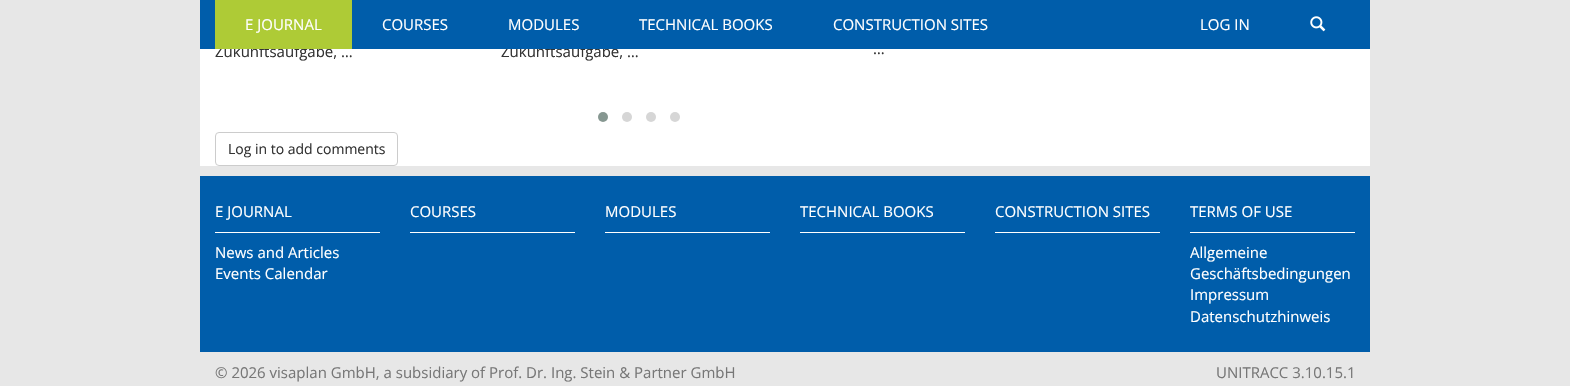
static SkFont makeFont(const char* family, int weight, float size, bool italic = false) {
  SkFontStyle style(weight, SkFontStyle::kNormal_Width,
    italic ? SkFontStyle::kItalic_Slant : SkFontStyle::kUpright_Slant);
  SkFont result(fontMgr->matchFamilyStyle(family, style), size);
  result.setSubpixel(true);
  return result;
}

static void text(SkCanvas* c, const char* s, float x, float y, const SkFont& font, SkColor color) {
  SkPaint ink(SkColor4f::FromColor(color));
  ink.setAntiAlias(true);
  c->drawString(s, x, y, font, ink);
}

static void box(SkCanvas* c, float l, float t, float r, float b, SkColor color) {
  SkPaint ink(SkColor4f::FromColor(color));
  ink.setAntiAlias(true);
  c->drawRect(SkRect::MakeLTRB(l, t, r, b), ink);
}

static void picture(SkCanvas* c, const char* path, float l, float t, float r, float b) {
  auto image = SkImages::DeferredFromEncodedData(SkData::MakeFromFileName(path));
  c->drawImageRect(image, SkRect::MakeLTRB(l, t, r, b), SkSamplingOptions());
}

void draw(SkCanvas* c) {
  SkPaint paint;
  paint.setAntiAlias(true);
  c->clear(0xffe7e7e7);
  box(c, 200, 49, 1370, 166, 0xffffffff);
  SkFont face1 = makeFont("Open Sans", 400, 15);
  text(c, "Zukunftsaufgabe, …", 215, 57, face1, 0xff333333);
  text(c, "Zukunftsaufgabe, …", 501, 57, face1, 0xff333333);
  box(c, 200, 0, 1370, 49, 0xff005daa);
  box(c, 215, 0, 352, 49, 0xffaecb36);
  text(c, "E JOURNAL", 245, 30, face1, 0xffffffff);
  text(c, "COURSES", 382, 30, face1, 0xffffffff);
  text(c, "MODULES", 508, 30, face1, 0xffffffff);
  text(c, "TECHNICAL BOOKS", 639, 30, face1, 0xffffffff);
  text(c, "CONSTRUCTION SITES", 833, 30, face1, 0xffffffff);
  text(c, "LOG IN", 1200, 30, face1, 0xffffffff);
  picture(c, "img_01.png", 1310, 16, 1326, 32);
  text(c, "…", 873, 54, face1, 0xff333333);
  paint.setColor(0xff869791);
  c->drawCircle(603, 117, 5, paint);
  paint.setColor(0xffd6d6d6);
  c->drawCircle(627, 117, 5, paint);
  c->drawCircle(651, 117, 5, paint);
  c->drawCircle(675, 117, 5, paint);
  paint.setStyle(SkPaint::kStroke_Style);
  paint.setStrokeWidth(1);
  paint.setColor(0xffcccccc);
  c->drawRoundRect(SkRect::MakeLTRB(215.5f, 132.5f, 397.5f, 165.5f), 3.5f, 3.5f, paint);
  SkFont face2 = makeFont("Open Sans", 400, 14);
  text(c, "Log in to add comments", 228, 154, face2, 0xff333333);
  box(c, 200, 176, 1370, 352, 0xff005daa);
  box(c, 215, 232, 380, 233, 0xffffffff);
  text(c, "E JOURNAL", 215, 217, face1, 0xffffffff);
  text(c, "News and Articles", 215, 258, face1, 0xffffffff);
  text(c, "Events Calendar", 215, 279, face1, 0xffffffff);
  box(c, 410, 232, 575, 233, 0xffffffff);
  text(c, "COURSES", 410, 217, face1, 0xffffffff);
  box(c, 605, 232, 770, 233, 0xffffffff);
  text(c, "MODULES", 605, 217, face1, 0xffffffff);
  box(c, 800, 232, 965, 233, 0xffffffff);
  text(c, "TECHNICAL BOOKS", 800, 217, face1, 0xffffffff);
  box(c, 995, 232, 1160, 233, 0xffffffff);
  text(c, "CONSTRUCTION SITES", 995, 217, face1, 0xffffffff);
  box(c, 1190, 232, 1355, 233, 0xffffffff);
  text(c, "TERMS OF USE", 1190, 217, face1, 0xffffffff);
  text(c, "Allgemeine", 1190, 258, face1, 0xffffffff);
  text(c, "Geschäftsbedingungen", 1190, 279, face1, 0xffffffff);
  text(c, "Impressum", 1190, 300, face1, 0xffffffff);
  text(c, "Datenschutzhinweis", 1190, 322, face1, 0xffffffff);
  text(c, "© 2026 visaplan GmbH, a subsidiary of Prof. Dr. Ing. Stein & Partner GmbH", 215, 378, face1, 0xff777777);
  text(c, "UNITRACC 3.10.15.1", 1216, 378, face1, 0xff777777);
}
